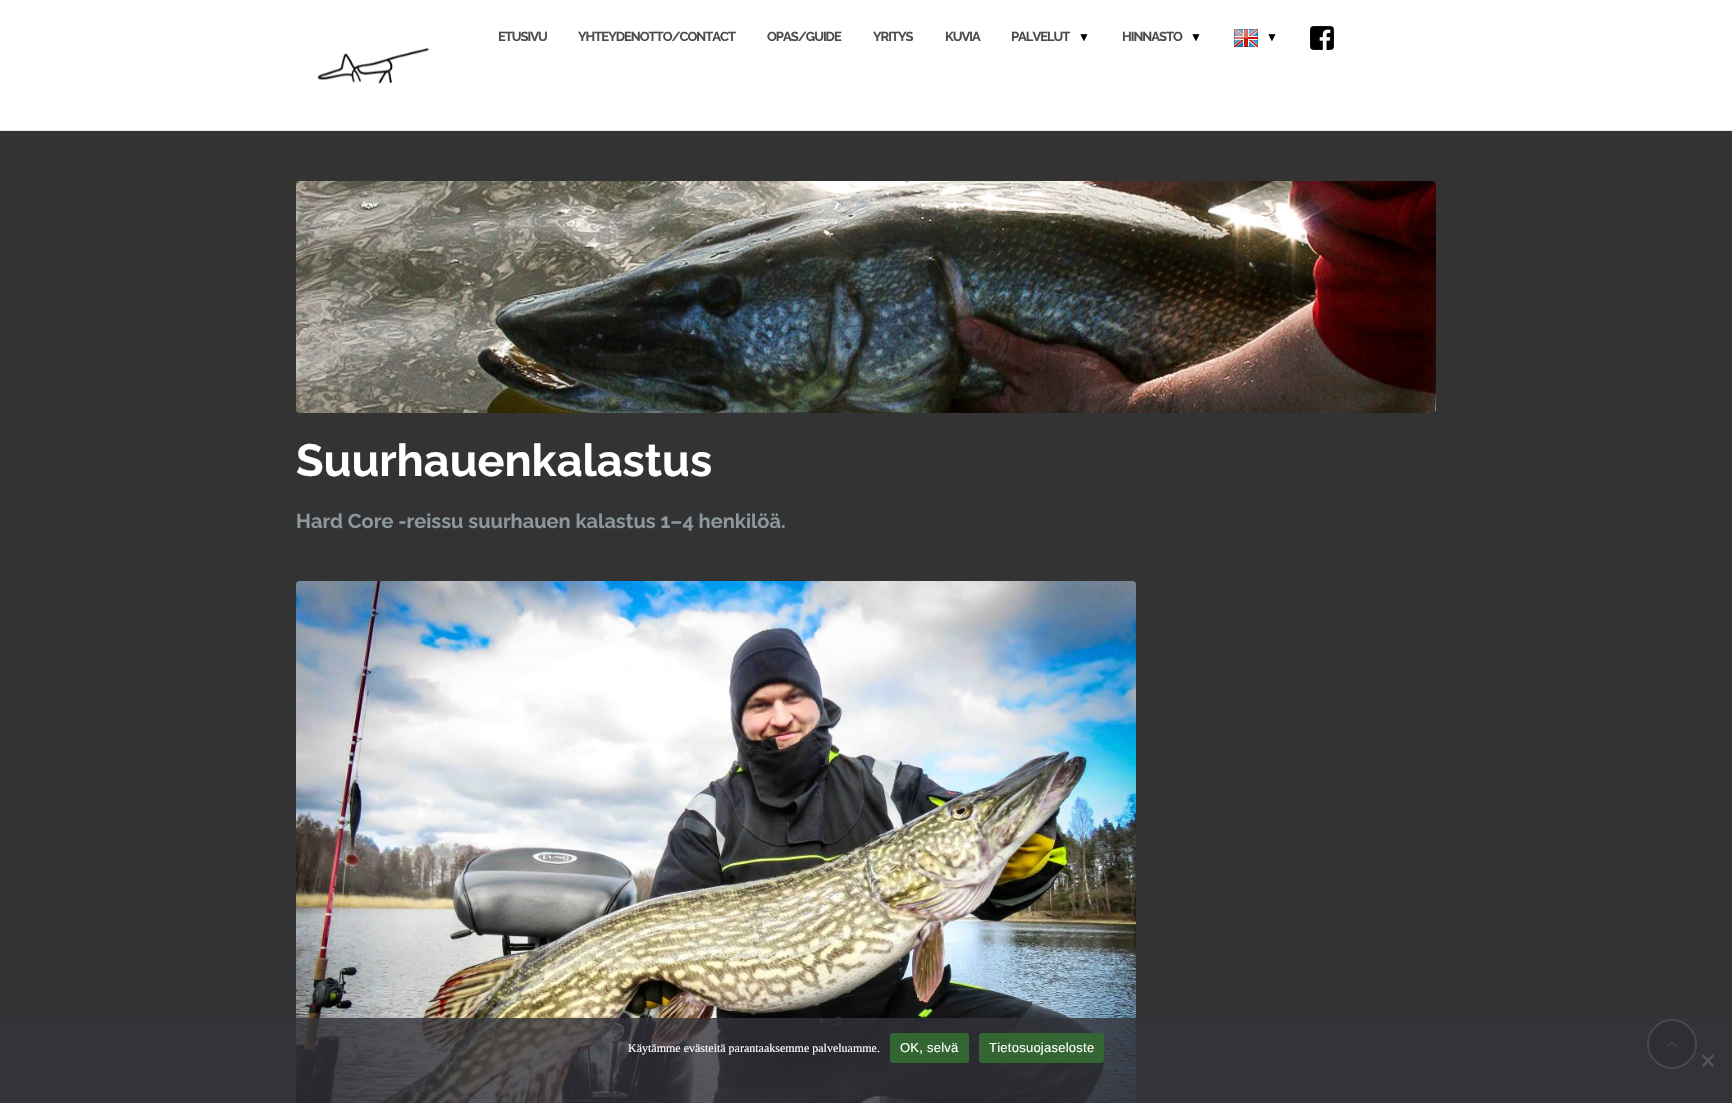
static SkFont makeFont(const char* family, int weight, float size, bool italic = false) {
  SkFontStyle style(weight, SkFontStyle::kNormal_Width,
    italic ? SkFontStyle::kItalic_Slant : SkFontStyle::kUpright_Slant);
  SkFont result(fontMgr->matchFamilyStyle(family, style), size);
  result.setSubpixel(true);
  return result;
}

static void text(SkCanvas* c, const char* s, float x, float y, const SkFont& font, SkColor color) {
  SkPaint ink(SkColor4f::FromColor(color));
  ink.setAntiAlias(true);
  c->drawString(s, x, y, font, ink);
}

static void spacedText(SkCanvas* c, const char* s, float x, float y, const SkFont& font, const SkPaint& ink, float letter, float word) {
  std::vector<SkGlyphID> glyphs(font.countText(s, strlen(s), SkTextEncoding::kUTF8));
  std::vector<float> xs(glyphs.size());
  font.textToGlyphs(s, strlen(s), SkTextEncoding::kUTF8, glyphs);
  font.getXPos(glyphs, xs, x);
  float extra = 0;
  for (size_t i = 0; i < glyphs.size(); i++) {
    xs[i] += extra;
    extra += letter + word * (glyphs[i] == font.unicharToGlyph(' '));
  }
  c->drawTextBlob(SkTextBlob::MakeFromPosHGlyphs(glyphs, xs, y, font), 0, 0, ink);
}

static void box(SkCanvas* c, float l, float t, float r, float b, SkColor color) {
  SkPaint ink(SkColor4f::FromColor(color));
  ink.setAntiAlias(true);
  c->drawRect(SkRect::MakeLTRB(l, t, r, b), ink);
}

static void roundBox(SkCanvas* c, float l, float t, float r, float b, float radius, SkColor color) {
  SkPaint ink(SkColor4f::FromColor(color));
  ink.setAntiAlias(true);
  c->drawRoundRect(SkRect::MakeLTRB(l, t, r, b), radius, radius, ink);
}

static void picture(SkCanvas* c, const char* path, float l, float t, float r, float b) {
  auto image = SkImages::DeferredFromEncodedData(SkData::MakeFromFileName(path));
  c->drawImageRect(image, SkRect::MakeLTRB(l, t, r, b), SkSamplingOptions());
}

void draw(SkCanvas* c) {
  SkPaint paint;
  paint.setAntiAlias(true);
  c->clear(0xff333333);
  box(c, 0, 0, 1732, 130, 0xffffffff);
  box(c, 0, 130, 1732, 131, 0xffe6e6e6);
  SkFont face1 = makeFont("Raleway", 700, 13);
  paint.setColor(0xff4c4c4c);
  spacedText(c, "ETUSIVU", 498, 41, face1, paint, -1, 0);
  spacedText(c, "YHTEYDENOTTO/CONTACT", 578, 41, face1, paint, -1, 0);
  spacedText(c, "OPAS/GUIDE", 767, 41, face1, paint, -1, 0);
  spacedText(c, "YRITYS", 873, 41, face1, paint, -1, 0);
  spacedText(c, "KUVIA", 945, 41, face1, paint, -1, 0);
  spacedText(c, "PALVELUT", 1011, 41, face1, paint, -1, 0);
  SkFont face2 = makeFont("Liberation Serif", 700, 12);
  text(c, "▼", 1078, 41, face2, 0xff000000);
  spacedText(c, "HINNASTO", 1122, 41, face1, paint, -1, 0);
  text(c, "▼", 1190, 41, face2, 0xff000000);
  picture(c, "img_01.png", 1234, 29, 1258, 47);
  text(c, "▼", 1266, 41, face2, 0xff000000);
  picture(c, "img_02.png", 1310, 26, 1334, 50);
  picture(c, "img_03.png", 317, 48, 429, 96);
  picture(c, "img_04.png", 296, 181, 1436, 413);
  SkFont face3 = makeFont("Raleway", 700, 45);
  text(c, "Suurhauenkalastus", 296, 476, face3, 0xffffffff);
  SkFont face4 = makeFont("Raleway", 700, 20);
  text(c, "Hard Core -reissu suurhauen kalastus 1–4 henkilöä.", 296, 528, face4, 0xff8c979e);
  picture(c, "img_05.png", 296, 581, 1136, 1103);
  paint.setColor(0xff1a1a1a);
  c->drawCircle(1672, 1044, 24, paint);
  paint.setStyle(SkPaint::kStroke_Style);
  paint.setStrokeWidth(2);
  paint.setColor(0xff999999);
  c->drawCircle(1672, 1044, 24, paint);
  picture(c, "img_06.png", 1666, 1041, 1677, 1048);
  box(c, 0, 1018, 1732, 1103, 0xcc32323a);
  SkFont face5 = makeFont("Liberation Serif", 400, 12);
  text(c, "Käytämme evästeitä parantaaksemme palveluamme.", 628, 1052, face5, 0xffffffff);
  roundBox(c, 890, 1033, 969, 1063, 3, 0xff336633);
  SkFont face6 = makeFont("Liberation Sans", 400, 13);
  paint.setStyle(SkPaint::kFill_Style);
  paint.setColor(0xffffffff);
  spacedText(c, "OK, selvä", 900, 1052, face6, paint, 0.25f, 0);
  roundBox(c, 979, 1033, 1104, 1063, 3, 0xff336633);
  spacedText(c, "Tietosuojaseloste", 989, 1052, face6, paint, 0.25f, 0);
  paint.setColor(0xff59595c);
  c->drawPath(SkPathBuilder().moveTo(1712.5f, 1054.5f).lineTo(1714, 1056).lineTo(1703.5f, 1067).lineTo(1702, 1065.5f).close().detach(), paint);
  c->drawPath(SkPathBuilder().moveTo(1702, 1056).lineTo(1703.5f, 1054.5f).lineTo(1714, 1065.5f).lineTo(1712.5f, 1067).close().detach(), paint);
}
